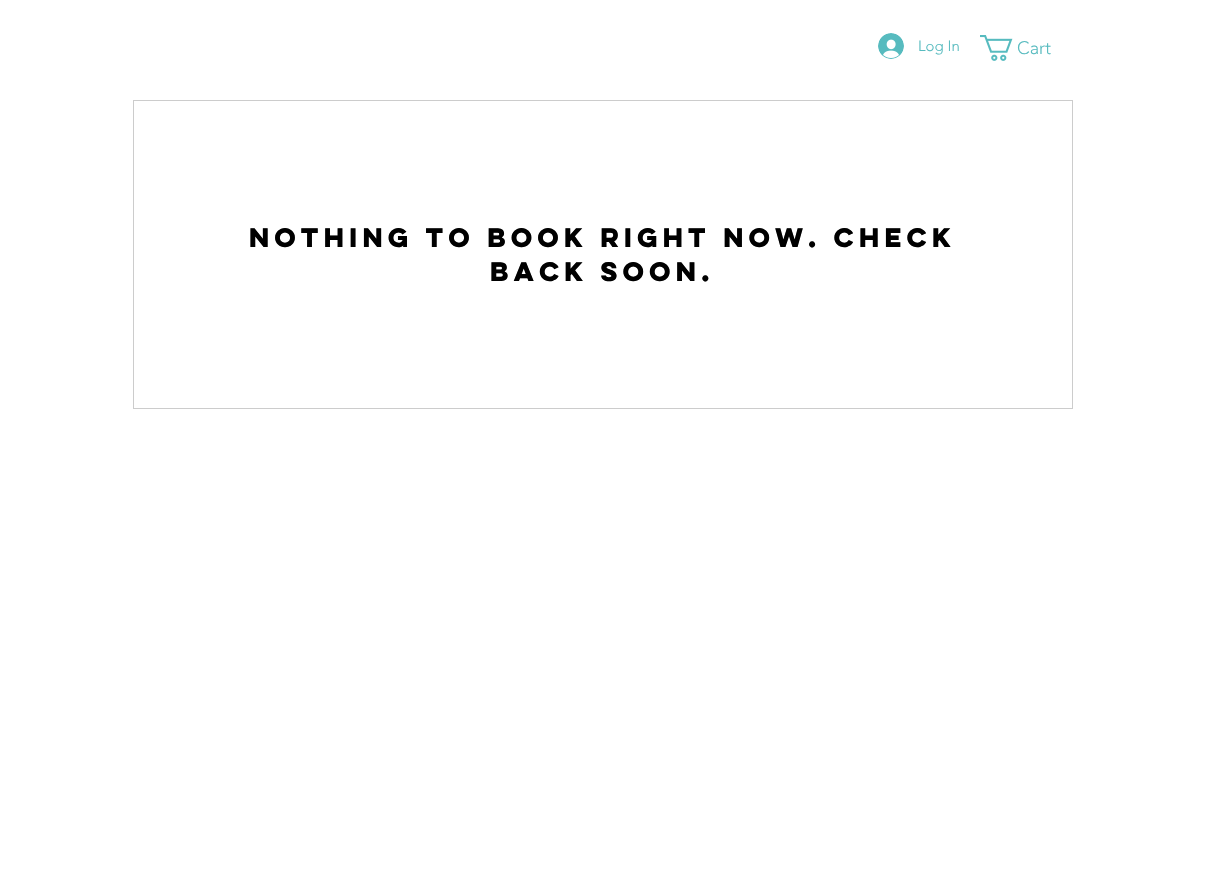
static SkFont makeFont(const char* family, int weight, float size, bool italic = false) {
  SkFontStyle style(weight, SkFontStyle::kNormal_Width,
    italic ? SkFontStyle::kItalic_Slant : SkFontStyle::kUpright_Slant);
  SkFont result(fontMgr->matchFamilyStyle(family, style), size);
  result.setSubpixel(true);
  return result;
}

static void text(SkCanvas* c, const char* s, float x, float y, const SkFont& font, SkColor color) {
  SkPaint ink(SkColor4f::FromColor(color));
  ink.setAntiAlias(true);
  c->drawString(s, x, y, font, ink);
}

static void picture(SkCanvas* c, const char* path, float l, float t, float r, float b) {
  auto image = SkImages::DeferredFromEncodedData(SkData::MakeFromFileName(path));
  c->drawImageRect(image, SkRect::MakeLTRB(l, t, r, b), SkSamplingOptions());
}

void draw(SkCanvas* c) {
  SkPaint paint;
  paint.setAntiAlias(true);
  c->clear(0xffffffff);
  picture(c, "img_01.png", 878, 33, 904, 59);
  SkFont face1 = makeFont("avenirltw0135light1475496", 300, 15);
  text(c, "Log In", 918, 51, face1, 0xff57bbbf);
  picture(c, "img_02.png", 980, 35, 1013, 61);
  SkFont face2 = makeFont("avenirltw0135light1475496", 300, 18);
  text(c, "Cart", 1017, 54, face2, 0xff57bbbf);
  paint.setStyle(SkPaint::kStroke_Style);
  paint.setStrokeWidth(1);
  paint.setColor(0xffcccccc);
  c->drawRect(SkRect::MakeLTRB(133.5f, 100.5f, 1072.5f, 408.5f), paint);
  SkFont face3 = makeFont("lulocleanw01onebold", 700, 24);
  text(c, "Nothing to book right now. Check", 249, 247, face3, 0xff000000);
  text(c, "back soon.", 490, 281, face3, 0xff000000);
}
